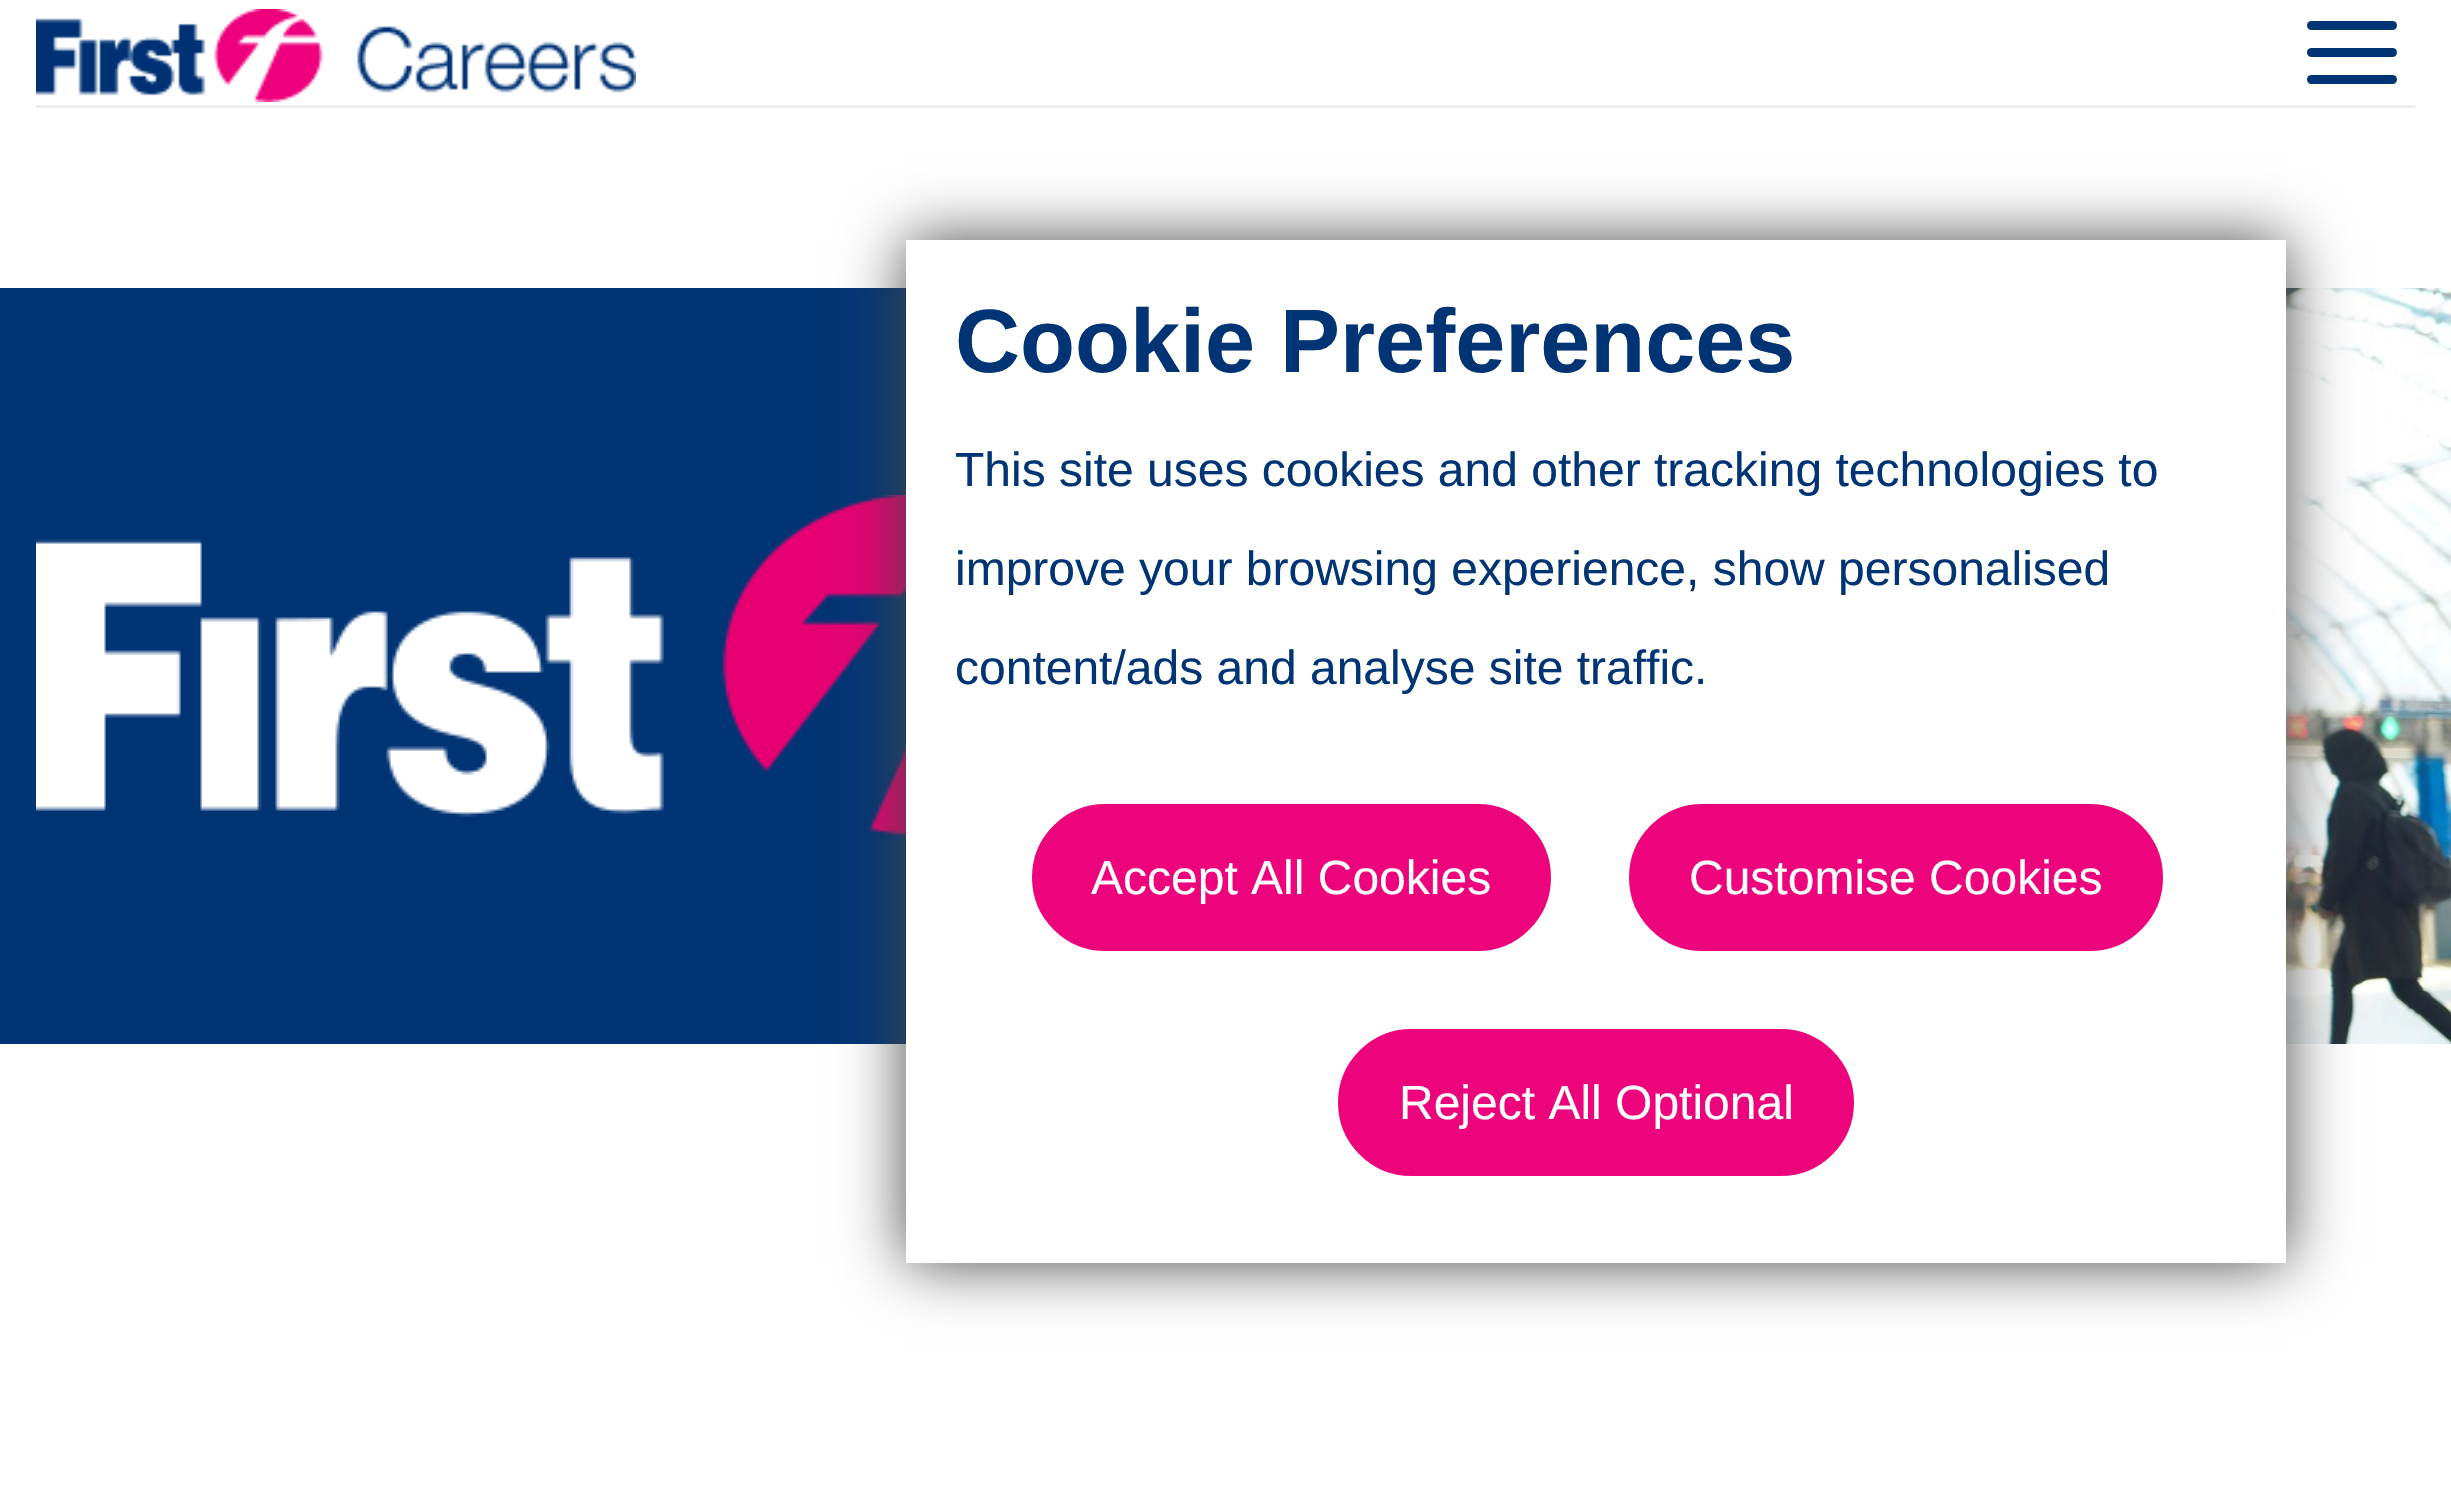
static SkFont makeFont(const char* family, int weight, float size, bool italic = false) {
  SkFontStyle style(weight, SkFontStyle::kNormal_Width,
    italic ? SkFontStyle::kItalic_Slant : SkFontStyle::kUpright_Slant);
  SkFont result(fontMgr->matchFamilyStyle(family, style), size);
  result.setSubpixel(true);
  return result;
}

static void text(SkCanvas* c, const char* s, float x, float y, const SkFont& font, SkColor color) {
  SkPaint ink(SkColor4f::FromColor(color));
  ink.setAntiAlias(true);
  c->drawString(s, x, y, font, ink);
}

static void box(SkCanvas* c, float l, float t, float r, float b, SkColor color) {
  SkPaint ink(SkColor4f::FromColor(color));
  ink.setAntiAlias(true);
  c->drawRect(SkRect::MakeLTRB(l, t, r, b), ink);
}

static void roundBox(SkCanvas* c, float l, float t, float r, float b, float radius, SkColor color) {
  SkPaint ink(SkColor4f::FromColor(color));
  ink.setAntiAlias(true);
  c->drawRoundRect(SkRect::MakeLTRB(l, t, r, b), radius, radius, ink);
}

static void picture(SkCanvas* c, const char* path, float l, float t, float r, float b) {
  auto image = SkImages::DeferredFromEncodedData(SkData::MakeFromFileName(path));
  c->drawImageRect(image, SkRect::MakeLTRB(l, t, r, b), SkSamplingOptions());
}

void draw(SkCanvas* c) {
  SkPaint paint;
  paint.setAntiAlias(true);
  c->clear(0xffffffff);
  box(c, 36, 105, 2415, 108, 0xffeeeeee);
  picture(c, "img_01.png", 36, 9, 636, 102);
  roundBox(c, 2307, 21, 2397, 30, 4.5f, 0xff013474);
  roundBox(c, 2307, 48, 2397, 57, 4.5f, 0xff013474);
  roundBox(c, 2307, 75, 2397, 84, 4.5f, 0xff013474);
  box(c, 0, 288, 906, 1044, 0xff013474);
  picture(c, "img_02.png", 36, 495, 906, 835);
  picture(c, "img_03.png", 2286, 288, 2451, 1044);
  paint.setColor(0xff494949);
  paint.setMaskFilter(SkMaskFilter::MakeBlur(kNormal_SkBlurStyle, 30));
  c->drawRect(SkRect::MakeLTRB(906, 240, 2286, 1263), paint);
  paint.setMaskFilter(nullptr);
  box(c, 906, 240, 2286, 1263, 0xffffffff);
  SkFont face1 = makeFont("Liberation Sans", 700, 90);
  text(c, "Cookie Preferences", 955, 372, face1, 0xff013474);
  SkFont face2 = makeFont("Liberation Sans", 400, 48);
  text(c, "This site uses cookies and other tracking technologies to", 955, 486, face2, 0xff013474);
  text(c, "improve your browsing experience, show personalised", 955, 585, face2, 0xff013474);
  text(c, "content/ads and analyse site traffic.", 955, 684, face2, 0xff013474);
  paint.setColor(0xffed037c);
  c->drawRoundRect(SkRect::MakeLTRB(1030.5f, 802.5f, 1552.5f, 952.5f), 75, 75, paint);
  paint.setStyle(SkPaint::kStroke_Style);
  paint.setStrokeWidth(3);
  paint.setColor(0xffffffff);
  c->drawRoundRect(SkRect::MakeLTRB(1030.5f, 802.5f, 1552.5f, 952.5f), 75, 75, paint);
  text(c, "Accept All Cookies", 1091, 894, face2, 0xffffffff);
  paint.setStyle(SkPaint::kFill_Style);
  paint.setColor(0xffed037c);
  c->drawRoundRect(SkRect::MakeLTRB(1627.5f, 802.5f, 2164.5f, 952.5f), 75, 75, paint);
  paint.setStyle(SkPaint::kStroke_Style);
  paint.setColor(0xffffffff);
  c->drawRoundRect(SkRect::MakeLTRB(1627.5f, 802.5f, 2164.5f, 952.5f), 75, 75, paint);
  text(c, "Customise Cookies", 1689, 894, face2, 0xffffffff);
  paint.setStyle(SkPaint::kFill_Style);
  paint.setColor(0xffed037c);
  c->drawRoundRect(SkRect::MakeLTRB(1336.5f, 1027.5f, 1855.5f, 1177.5f), 75, 75, paint);
  paint.setStyle(SkPaint::kStroke_Style);
  paint.setColor(0xffffffff);
  c->drawRoundRect(SkRect::MakeLTRB(1336.5f, 1027.5f, 1855.5f, 1177.5f), 75, 75, paint);
  text(c, "Reject All Optional", 1399, 1119, face2, 0xffffffff);
}
